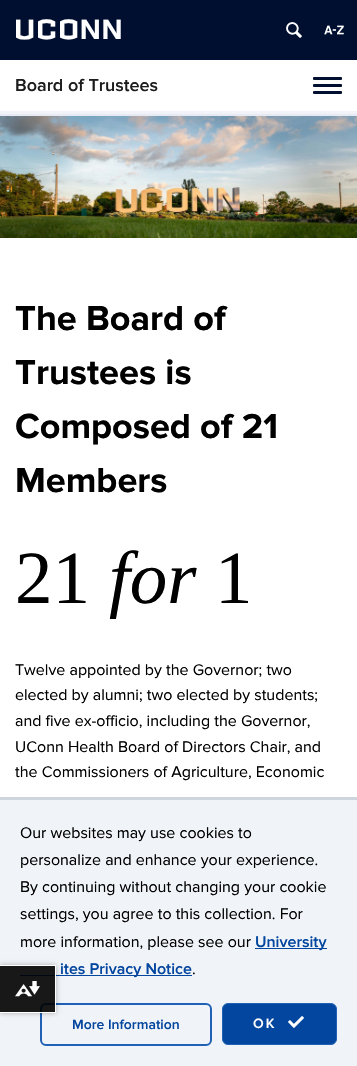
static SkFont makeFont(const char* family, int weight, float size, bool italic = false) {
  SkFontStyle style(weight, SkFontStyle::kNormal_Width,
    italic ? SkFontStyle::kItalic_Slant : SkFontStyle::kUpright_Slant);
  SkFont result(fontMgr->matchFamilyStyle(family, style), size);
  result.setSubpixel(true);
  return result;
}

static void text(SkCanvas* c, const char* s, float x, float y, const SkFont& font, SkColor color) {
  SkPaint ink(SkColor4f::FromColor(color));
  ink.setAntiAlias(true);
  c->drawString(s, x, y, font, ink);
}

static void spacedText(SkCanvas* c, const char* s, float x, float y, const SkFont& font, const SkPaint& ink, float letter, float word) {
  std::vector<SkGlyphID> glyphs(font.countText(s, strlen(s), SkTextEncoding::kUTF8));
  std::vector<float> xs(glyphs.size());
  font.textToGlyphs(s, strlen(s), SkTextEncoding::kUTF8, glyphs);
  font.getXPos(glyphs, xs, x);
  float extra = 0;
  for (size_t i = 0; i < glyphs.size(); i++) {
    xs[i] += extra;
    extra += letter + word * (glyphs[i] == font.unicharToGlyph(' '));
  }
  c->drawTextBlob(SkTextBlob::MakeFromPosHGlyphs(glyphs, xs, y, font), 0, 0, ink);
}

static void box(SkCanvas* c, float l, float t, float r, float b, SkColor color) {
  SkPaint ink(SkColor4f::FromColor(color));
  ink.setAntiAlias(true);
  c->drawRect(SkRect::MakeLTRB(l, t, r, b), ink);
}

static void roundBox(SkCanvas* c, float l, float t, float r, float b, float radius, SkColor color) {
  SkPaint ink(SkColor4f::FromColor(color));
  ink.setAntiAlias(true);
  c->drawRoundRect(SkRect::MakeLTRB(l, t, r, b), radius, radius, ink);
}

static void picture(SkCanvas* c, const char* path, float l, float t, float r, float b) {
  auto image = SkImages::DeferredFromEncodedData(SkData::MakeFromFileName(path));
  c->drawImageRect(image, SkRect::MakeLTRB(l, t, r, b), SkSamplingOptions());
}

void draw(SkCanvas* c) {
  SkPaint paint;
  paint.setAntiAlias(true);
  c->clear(0xffffffff);
  box(c, 0, 0, 357, 60, 0xff000e2f);
  SkFont face1 = makeFont("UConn", 400, 32);
  paint.setColor(0xffffffff);
  spacedText(c, "UCONN", 16, 39, face1, paint, 3, 0);
  picture(c, "img_01.png", 286, 22, 302, 38);
  picture(c, "img_02.png", 324, 25, 344, 35);
  SkFont face2 = makeFont("Proxima Nova", 600, 18);
  text(c, "Board of Trustees", 15, 91, face2, 0xff1c1c1c);
  roundBox(c, 313, 77, 342, 80, 1, 0xff000e2f);
  roundBox(c, 313, 84, 342, 87, 1, 0xff000e2f);
  roundBox(c, 313, 91, 342, 94, 1, 0xff000e2f);
  box(c, 0, 111, 357, 114, 0xfff1f3f8);
  box(c, 0, 114, 357, 116, 0xffe7eaf2);
  picture(c, "img_03.png", 0, 116, 357, 238);
  SkFont face3 = makeFont("Proxima Nova", 700, 36);
  text(c, "The Board of", 15, 330, face3, 0xff000000);
  text(c, "Trustees is", 15, 384, face3, 0xff000000);
  text(c, "Composed of 21", 15, 438, face3, 0xff000000);
  text(c, "Members", 15, 492, face3, 0xff000000);
  SkFont face4 = makeFont("Liberation Serif", 400, 75);
  text(c, "21", 15, 603, face4, 0xff000000);
  SkFont face5 = makeFont("Liberation Serif", 400, 75, true);
  text(c, "for", 109, 603, face5, 0xff000000);
  text(c, "1", 215, 603, face4, 0xff000000);
  SkFont face6 = makeFont("Proxima Nova", 400, 16);
  text(c, "Twelve appointed by the Governor; two", 15, 675, face6, 0xff000000);
  text(c, "elected by alumni; two elected by students;", 15, 700, face6, 0xff000000);
  text(c, "and five ex-officio, including the Governor,", 15, 726, face6, 0xff000000);
  text(c, "UConn Health Board of Directors Chair, and", 15, 752, face6, 0xff000000);
  text(c, "the Commissioners of Agriculture, Economic", 15, 777, face6, 0xff000000);
  box(c, 0, 800, 357, 1066, 0xfff0f3f7);
  box(c, 0, 797, 357, 800, 0xffcfd5dd);
  text(c, "Our websites may use cookies to", 20, 838, face6, 0xff000000);
  text(c, "personalize and enhance your experience.", 20, 865, face6, 0xff000000);
  text(c, "By continuing without changing your cookie", 20, 892, face6, 0xff000000);
  text(c, "settings, you agree to this collection. For", 20, 919, face6, 0xff000000);
  text(c, "more information, please see our", 20, 947, face6, 0xff000000);
  box(c, 255, 948, 327, 949, 0xff03469f);
  SkFont face7 = makeFont("Proxima Nova", 600, 16);
  text(c, "University", 255, 947, face7, 0xff03469f);
  box(c, 20, 975, 192, 976, 0xff03469f);
  text(c, "ites Privacy Notice", 60, 974, face7, 0xff03469f);
  text(c, ".", 192, 974, face6, 0xff000000);
  paint.setStyle(SkPaint::kStroke_Style);
  paint.setStrokeWidth(2);
  paint.setColor(0xff2061b6);
  c->drawRoundRect(SkRect::MakeLTRB(41, 1004, 211, 1045), 5, 5, paint);
  SkFont face8 = makeFont("Proxima Nova", 600, 14);
  text(c, "More Information", 72, 1029, face8, 0xff03469f);
  paint.setStyle(SkPaint::kFill_Style);
  paint.setColor(0xff03469f);
  c->drawRoundRect(SkRect::MakeLTRB(222.5f, 1003.5f, 336.5f, 1044.5f), 5.5f, 5.5f, paint);
  paint.setStyle(SkPaint::kStroke_Style);
  paint.setStrokeWidth(1);
  paint.setColor(0xff2061b6);
  c->drawRoundRect(SkRect::MakeLTRB(222.5f, 1003.5f, 336.5f, 1044.5f), 5.5f, 5.5f, paint);
  paint.setStyle(SkPaint::kFill_Style);
  paint.setColor(0xffffffff);
  spacedText(c, "OK", 253, 1028, face8, paint, 2, 0);
  picture(c, "img_04.png", 288, 1016, 304, 1028);
  c->save();
  c->clipPath(SkPathBuilder(SkPathFillType::kEvenOdd).moveTo(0, 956).lineTo(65, 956).lineTo(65, 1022).lineTo(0, 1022).close().moveTo(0, 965).lineTo(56, 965).lineTo(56, 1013).lineTo(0, 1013).close().detach(), true);
  paint.setColor(0x4d000000);
  paint.setMaskFilter(SkMaskFilter::MakeBlur(kNormal_SkBlurStyle, 2.5f));
  c->drawRect(SkRect::MakeLTRB(0, 965, 56, 1013), paint);
  paint.setMaskFilter(nullptr);
  c->restore();
  box(c, 0, 966, 55, 1012, 0xe6000000);
  box(c, 0, 965, 56, 966, 0xffffffff);
  box(c, 55, 965, 56, 1013, 0xffffffff);
  box(c, 0, 1012, 56, 1013, 0xffffffff);
  picture(c, "img_05.png", 15, 981, 40, 997);
}
